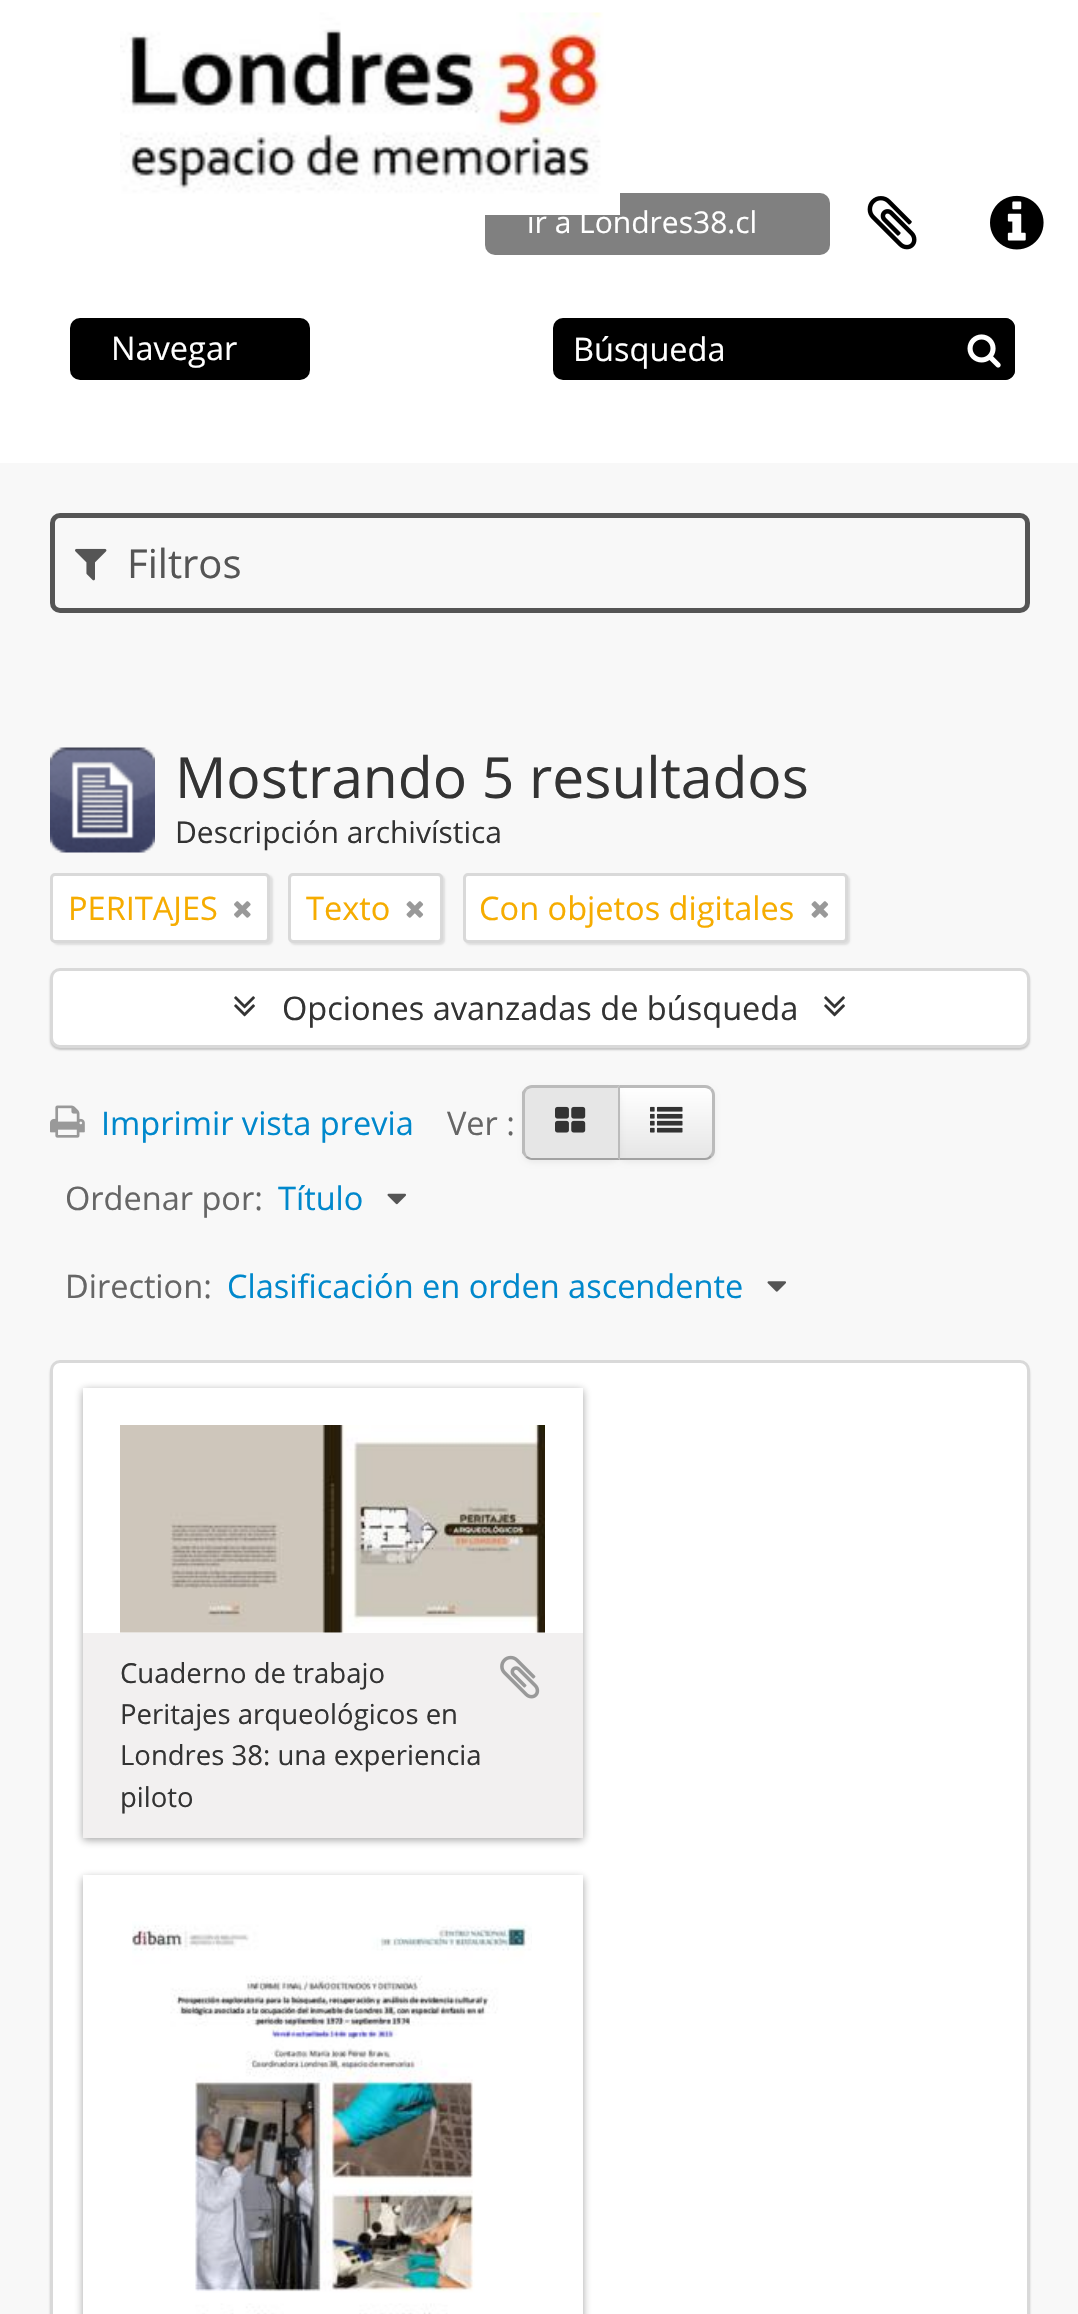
static SkFont makeFont(const char* family, int weight, float size, bool italic = false) {
  SkFontStyle style(weight, SkFontStyle::kNormal_Width,
    italic ? SkFontStyle::kItalic_Slant : SkFontStyle::kUpright_Slant);
  SkFont result(fontMgr->matchFamilyStyle(family, style), size);
  result.setSubpixel(true);
  return result;
}

static void text(SkCanvas* c, const char* s, float x, float y, const SkFont& font, SkColor color) {
  SkPaint ink(SkColor4f::FromColor(color));
  ink.setAntiAlias(true);
  c->drawString(s, x, y, font, ink);
}

static void box(SkCanvas* c, float l, float t, float r, float b, SkColor color) {
  SkPaint ink(SkColor4f::FromColor(color));
  ink.setAntiAlias(true);
  c->drawRect(SkRect::MakeLTRB(l, t, r, b), ink);
}

static void roundBox(SkCanvas* c, float l, float t, float r, float b, float radius, SkColor color) {
  SkPaint ink(SkColor4f::FromColor(color));
  ink.setAntiAlias(true);
  c->drawRoundRect(SkRect::MakeLTRB(l, t, r, b), radius, radius, ink);
}

static void picture(SkCanvas* c, const char* path, float l, float t, float r, float b) {
  auto image = SkImages::DeferredFromEncodedData(SkData::MakeFromFileName(path));
  c->drawImageRect(image, SkRect::MakeLTRB(l, t, r, b), SkSamplingOptions());
}

void draw(SkCanvas* c) {
  SkPaint paint;
  paint.setAntiAlias(true);
  c->clear(0xfff8f8f8);
  box(c, 0, 0, 1078, 463, 0xffffffff);
  roundBox(c, 485, 193, 830, 255, 10, 0xff808080);
  SkFont face1 = makeFont("Open Sans", 400, 30);
  text(c, "ir a Londres38.cl", 527, 233, face1, 0xffffffff);
  picture(c, "img_01.png", 120, 12, 620, 215);
  picture(c, "img_02.png", 867, 196, 917, 250);
  picture(c, "img_03.png", 990, 195, 1044, 250);
  roundBox(c, 70, 318, 310, 380, 10, 0xff000000);
  SkFont face2 = makeFont("Open Sans", 400, 32.5f);
  text(c, "Navegar", 111, 360, face2, 0xffffffff);
  roundBox(c, 553, 318, 1015, 380, 10, 0xff000000);
  paint.setColor(0x12000000);
  c->drawPath(SkPathBuilder().moveTo(562, 320).lineTo(1005, 320).cubicTo(1011, 320, 1015, 324, 1015, 330).lineTo(1015, 328).cubicTo(1015, 322, 1011, 318, 1005, 318).lineTo(563, 318).cubicTo(559, 318, 555, 321, 554, 325).cubicTo(555, 322, 559, 320, 562, 320).close().detach(), paint);
  text(c, "Búsqueda", 573, 361, face2, 0xffffffff);
  paint.setColor(0xff000000);
  c->drawPath(SkPathBuilder().moveTo(953, 318).lineTo(1005, 318).cubicTo(1010.5f, 318, 1015, 322.5f, 1015, 328).lineTo(1015, 370).cubicTo(1015, 375.5f, 1010.5f, 380, 1005, 380).lineTo(953, 380).close().detach(), paint);
  picture(c, "img_04.png", 967, 334, 1001, 368);
  paint.setStyle(SkPaint::kStroke_Style);
  paint.setStrokeWidth(5);
  paint.setColor(0xff555555);
  c->drawRoundRect(SkRect::MakeLTRB(52.5f, 515.5f, 1027.5f, 610.5f), 7.5f, 7.5f, paint);
  picture(c, "img_05.png", 75, 548, 107, 581);
  SkFont face3 = makeFont("Open Sans", 400, 40);
  text(c, "Filtros", 127, 578, face3, 0xff555555);
  picture(c, "img_06.png", 50, 747, 155, 853);
  SkFont face4 = makeFont("Open Sans", 400, 56.9f);
  text(c, "Mostrando 5 resultados", 175, 798, face4, 0xff333333);
  text(c, "Descripción archivística", 175, 843, face1, 0xff333333);
  paint.setStyle(SkPaint::kFill_Style);
  paint.setColor(0x1a000000);
  paint.setMaskFilter(SkMaskFilter::MakeBlur(kNormal_SkBlurStyle, 1));
  c->drawRoundRect(SkRect::MakeLTRB(53, 875, 273, 945), 5, 5, paint);
  paint.setMaskFilter(nullptr);
  paint.setColor(0xffffffff);
  c->drawRoundRect(SkRect::MakeLTRB(51.5f, 874.5f, 268.5f, 941.5f), 3.5f, 3.5f, paint);
  paint.setStyle(SkPaint::kStroke_Style);
  paint.setStrokeWidth(3);
  paint.setColor(0xffd9d9d9);
  c->drawRoundRect(SkRect::MakeLTRB(51.5f, 874.5f, 268.5f, 941.5f), 3.5f, 3.5f, paint);
  text(c, "PERITAJES", 68, 920, face2, 0xfff6ac00);
  picture(c, "img_07.png", 234, 901, 251, 918);
  paint.setStyle(SkPaint::kFill_Style);
  paint.setColor(0x1a000000);
  paint.setMaskFilter(SkMaskFilter::MakeBlur(kNormal_SkBlurStyle, 1));
  c->drawRoundRect(SkRect::MakeLTRB(290, 875, 445, 945), 5, 5, paint);
  paint.setMaskFilter(nullptr);
  paint.setColor(0xffffffff);
  c->drawRoundRect(SkRect::MakeLTRB(289.5f, 874.5f, 441.5f, 941.5f), 3.5f, 3.5f, paint);
  paint.setStyle(SkPaint::kStroke_Style);
  paint.setColor(0xffd9d9d9);
  c->drawRoundRect(SkRect::MakeLTRB(289.5f, 874.5f, 441.5f, 941.5f), 3.5f, 3.5f, paint);
  text(c, "Texto", 306, 920, face2, 0xfff6ac00);
  picture(c, "img_08.png", 406, 901, 424, 918);
  paint.setStyle(SkPaint::kFill_Style);
  paint.setColor(0x1a000000);
  paint.setMaskFilter(SkMaskFilter::MakeBlur(kNormal_SkBlurStyle, 1));
  c->drawRoundRect(SkRect::MakeLTRB(465, 875, 850, 945), 5, 5, paint);
  paint.setMaskFilter(nullptr);
  paint.setColor(0xffffffff);
  c->drawRoundRect(SkRect::MakeLTRB(464.5f, 874.5f, 846.5f, 941.5f), 3.5f, 3.5f, paint);
  paint.setStyle(SkPaint::kStroke_Style);
  paint.setColor(0xffd9d9d9);
  c->drawRoundRect(SkRect::MakeLTRB(464.5f, 874.5f, 846.5f, 941.5f), 3.5f, 3.5f, paint);
  text(c, "Con objetos digitales", 479, 920, face2, 0xfff6ac00);
  picture(c, "img_08.png", 811, 901, 829, 918);
  paint.setStyle(SkPaint::kFill_Style);
  paint.setColor(0x33000000);
  paint.setMaskFilter(SkMaskFilter::MakeBlur(kNormal_SkBlurStyle, 1));
  c->drawRoundRect(SkRect::MakeLTRB(50, 970, 1030, 1050), 10, 10, paint);
  paint.setMaskFilter(nullptr);
  paint.setColor(0xffffffff);
  c->drawRoundRect(SkRect::MakeLTRB(51.5f, 969.5f, 1028.5f, 1046.5f), 8.5f, 8.5f, paint);
  paint.setStyle(SkPaint::kStroke_Style);
  paint.setColor(0xffd9d9d9);
  c->drawRoundRect(SkRect::MakeLTRB(51.5f, 969.5f, 1028.5f, 1046.5f), 8.5f, 8.5f, paint);
  picture(c, "img_09.png", 234, 996, 255, 1017);
  text(c, "Opciones avanzadas de búsqueda", 282, 1020, face2, 0xff333333);
  picture(c, "img_09.png", 824, 996, 845, 1017);
  picture(c, "img_10.png", 50, 1105, 85, 1138);
  text(c, "Imprimir vista previa", 101, 1135, face2, 0xff0088cc);
  text(c, "Ver :", 447, 1135, face2, 0xff666666);
  paint.setStyle(SkPaint::kFill_Style);
  paint.setColor(0x0d000000);
  paint.setMaskFilter(SkMaskFilter::MakeBlur(kNormal_SkBlurStyle, 2.5f));
  c->drawRoundRect(SkRect::MakeLTRB(618, 1088, 715, 1163), 10, 10, paint);
  paint.setMaskFilter(nullptr);
  c->save();
  c->clipPath(SkPathBuilder().moveTo(618, 1085).lineTo(705, 1085).cubicTo(710.5f, 1085, 715, 1089.5f, 715, 1095).lineTo(715, 1150).cubicTo(715, 1155.5f, 710.5f, 1160, 705, 1160).lineTo(618, 1160).close().detach(), true);
  {
    const SkColor colors[] = {0xffffffff, 0xffe6e6e6};
    const float stops[] = {0, 1};
    const SkPoint ends[] = {{666, 1088}, {666, 1158}};
    paint.setShader(SkGradientShader::MakeLinear(ends, colors, stops, 2, SkTileMode::kClamp));
    paint.setAlpha(255);
  }
  c->drawRect(SkRect::MakeLTRB(620, 1088, 715, 1158), paint);
  c->restore();
  paint.setShader(nullptr);
  paint.setColor(0x33ffffff);
  c->drawPath(SkPathBuilder().moveTo(620, 1090).lineTo(691, 1090).cubicTo(697, 1090, 710, 1087, 712, 1096).lineTo(712, 1154).cubicTo(713, 1153, 713, 1152, 713, 1150).lineTo(713, 1096).cubicTo(713, 1092, 709, 1088, 705, 1088).lineTo(620, 1088).close().detach(), paint);
  paint.setColor(0xffbbbbbb);
  c->drawPath(SkPathBuilder().moveTo(618, 1085).lineTo(620, 1088).lineTo(705, 1088).cubicTo(707, 1088, 709, 1089, 710, 1090).lineTo(712, 1088).cubicTo(710, 1086, 708, 1085, 705, 1085).close().detach(), paint);
  c->drawPath(SkPathBuilder().moveTo(715, 1150).lineTo(715, 1095).cubicTo(715, 1092, 714, 1090, 712, 1088).lineTo(710, 1090).cubicTo(711, 1091, 712, 1093, 712, 1095).lineTo(712, 1150).cubicTo(712, 1152, 711, 1154, 710, 1155).lineTo(712, 1157).cubicTo(714, 1156, 715, 1153, 715, 1150).close().detach(), paint);
  paint.setColor(0xffa2a2a2);
  c->drawPath(SkPathBuilder().moveTo(618, 1160).lineTo(705, 1160).cubicTo(708, 1160, 710, 1159, 712, 1157).lineTo(710, 1155).cubicTo(709, 1157, 707, 1158, 705, 1158).lineTo(620, 1158).close().detach(), paint);
  paint.setColor(0x0d000000);
  paint.setMaskFilter(SkMaskFilter::MakeBlur(kNormal_SkBlurStyle, 2.5f));
  c->drawRoundRect(SkRect::MakeLTRB(523, 1088, 620, 1163), 10, 10, paint);
  paint.setMaskFilter(nullptr);
  paint.setColor(0xffe6e6e6);
  c->drawPath(SkPathBuilder().moveTo(533, 1085).lineTo(620, 1085).lineTo(620, 1160).lineTo(533, 1160).cubicTo(527.5f, 1160, 523, 1155.5f, 523, 1150).lineTo(523, 1095).cubicTo(523, 1089.5f, 527.5f, 1085, 533, 1085).close().detach(), paint);
  paint.setColor(0xffbbbbbb);
  c->drawPath(SkPathBuilder().moveTo(532, 1085).cubicTo(530, 1085, 527, 1086, 525, 1088).lineTo(527, 1090).cubicTo(528, 1089, 530, 1088, 532, 1088).lineTo(617, 1088).lineTo(620, 1085).close().detach(), paint);
  c->drawPath(SkPathBuilder().moveTo(620, 1085).lineTo(617, 1088).lineTo(618, 1088).lineTo(618, 1158).lineTo(620, 1160).close().detach(), paint);
  paint.setColor(0xffa2a2a2);
  c->drawPath(SkPathBuilder().moveTo(620, 1160).lineTo(618, 1158).lineTo(531, 1158).lineTo(527, 1156).lineTo(525, 1157).cubicTo(527, 1159, 530, 1160, 532, 1160).close().detach(), paint);
  paint.setColor(0xffbbbbbb);
  c->drawPath(SkPathBuilder().moveTo(522, 1092).lineTo(525, 1088).lineTo(527, 1090).cubicTo(526, 1091, 525, 1093, 525, 1095).lineTo(525, 1150).cubicTo(525, 1152, 526, 1154, 527, 1156).lineTo(525, 1157).lineTo(522, 1153).close().detach(), paint);
  picture(c, "img_11.png", 555, 1106, 586, 1133);
  picture(c, "img_12.png", 650, 1106, 683, 1133);
  text(c, "Ordenar por:", 65, 1210, face2, 0xff666666);
  text(c, "Título", 278, 1210, face2, 0xff0088cc);
  picture(c, "img_13.png", 387, 1193, 406, 1205);
  text(c, "Direction:", 65, 1298, face2, 0xff666666);
  text(c, "Clasificación en orden ascendente", 227, 1298, face2, 0xff0088cc);
  picture(c, "img_14.png", 767, 1281, 786, 1292);
  paint.setColor(0x33000000);
  paint.setMaskFilter(SkMaskFilter::MakeBlur(kNormal_SkBlurStyle, 1));
  c->drawRoundRect(SkRect::MakeLTRB(50, 1363, 1030, 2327), 10, 10, paint);
  paint.setMaskFilter(nullptr);
  paint.setColor(0xffffffff);
  c->drawRoundRect(SkRect::MakeLTRB(51.5f, 1361.5f, 1028.5f, 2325.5f), 8.5f, 8.5f, paint);
  paint.setStyle(SkPaint::kStroke_Style);
  paint.setColor(0xffd9d9d9);
  c->drawRoundRect(SkRect::MakeLTRB(51.5f, 1361.5f, 1028.5f, 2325.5f), 8.5f, 8.5f, paint);
  paint.setStyle(SkPaint::kFill_Style);
  paint.setColor(0x66191919);
  paint.setMaskFilter(SkMaskFilter::MakeBlur(kNormal_SkBlurStyle, 4));
  c->drawRect(SkRect::MakeLTRB(83, 1390, 583, 1840), paint);
  paint.setMaskFilter(nullptr);
  box(c, 83, 1388, 583, 1633, 0xffffffff);
  picture(c, "img_15.png", 120, 1425, 545, 1633);
  box(c, 83, 1633, 583, 1838, 0xfff2f0f0);
  SkFont face5 = makeFont("Open Sans", 400, 27.5f);
  text(c, "Cuaderno de trabajo", 120, 1683, face5, 0xff333333);
  picture(c, "img_16.png", 500, 1655, 540, 1699);
  text(c, "Peritajes arqueológicos en", 120, 1724, face5, 0xff333333);
  text(c, "Londres 38: una experiencia", 120, 1765, face5, 0xff333333);
  text(c, "piloto", 120, 1807, face5, 0xff333333);
  paint.setMaskFilter(SkMaskFilter::MakeBlur(kNormal_SkBlurStyle, 4));
  c->drawRect(SkRect::MakeLTRB(83, 1878, 583, 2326), paint);
  paint.setMaskFilter(nullptr);
  box(c, 83, 1875, 583, 2314, 0xffffffff);
  picture(c, "img_17.png", 132, 1921, 532, 2314);
}
